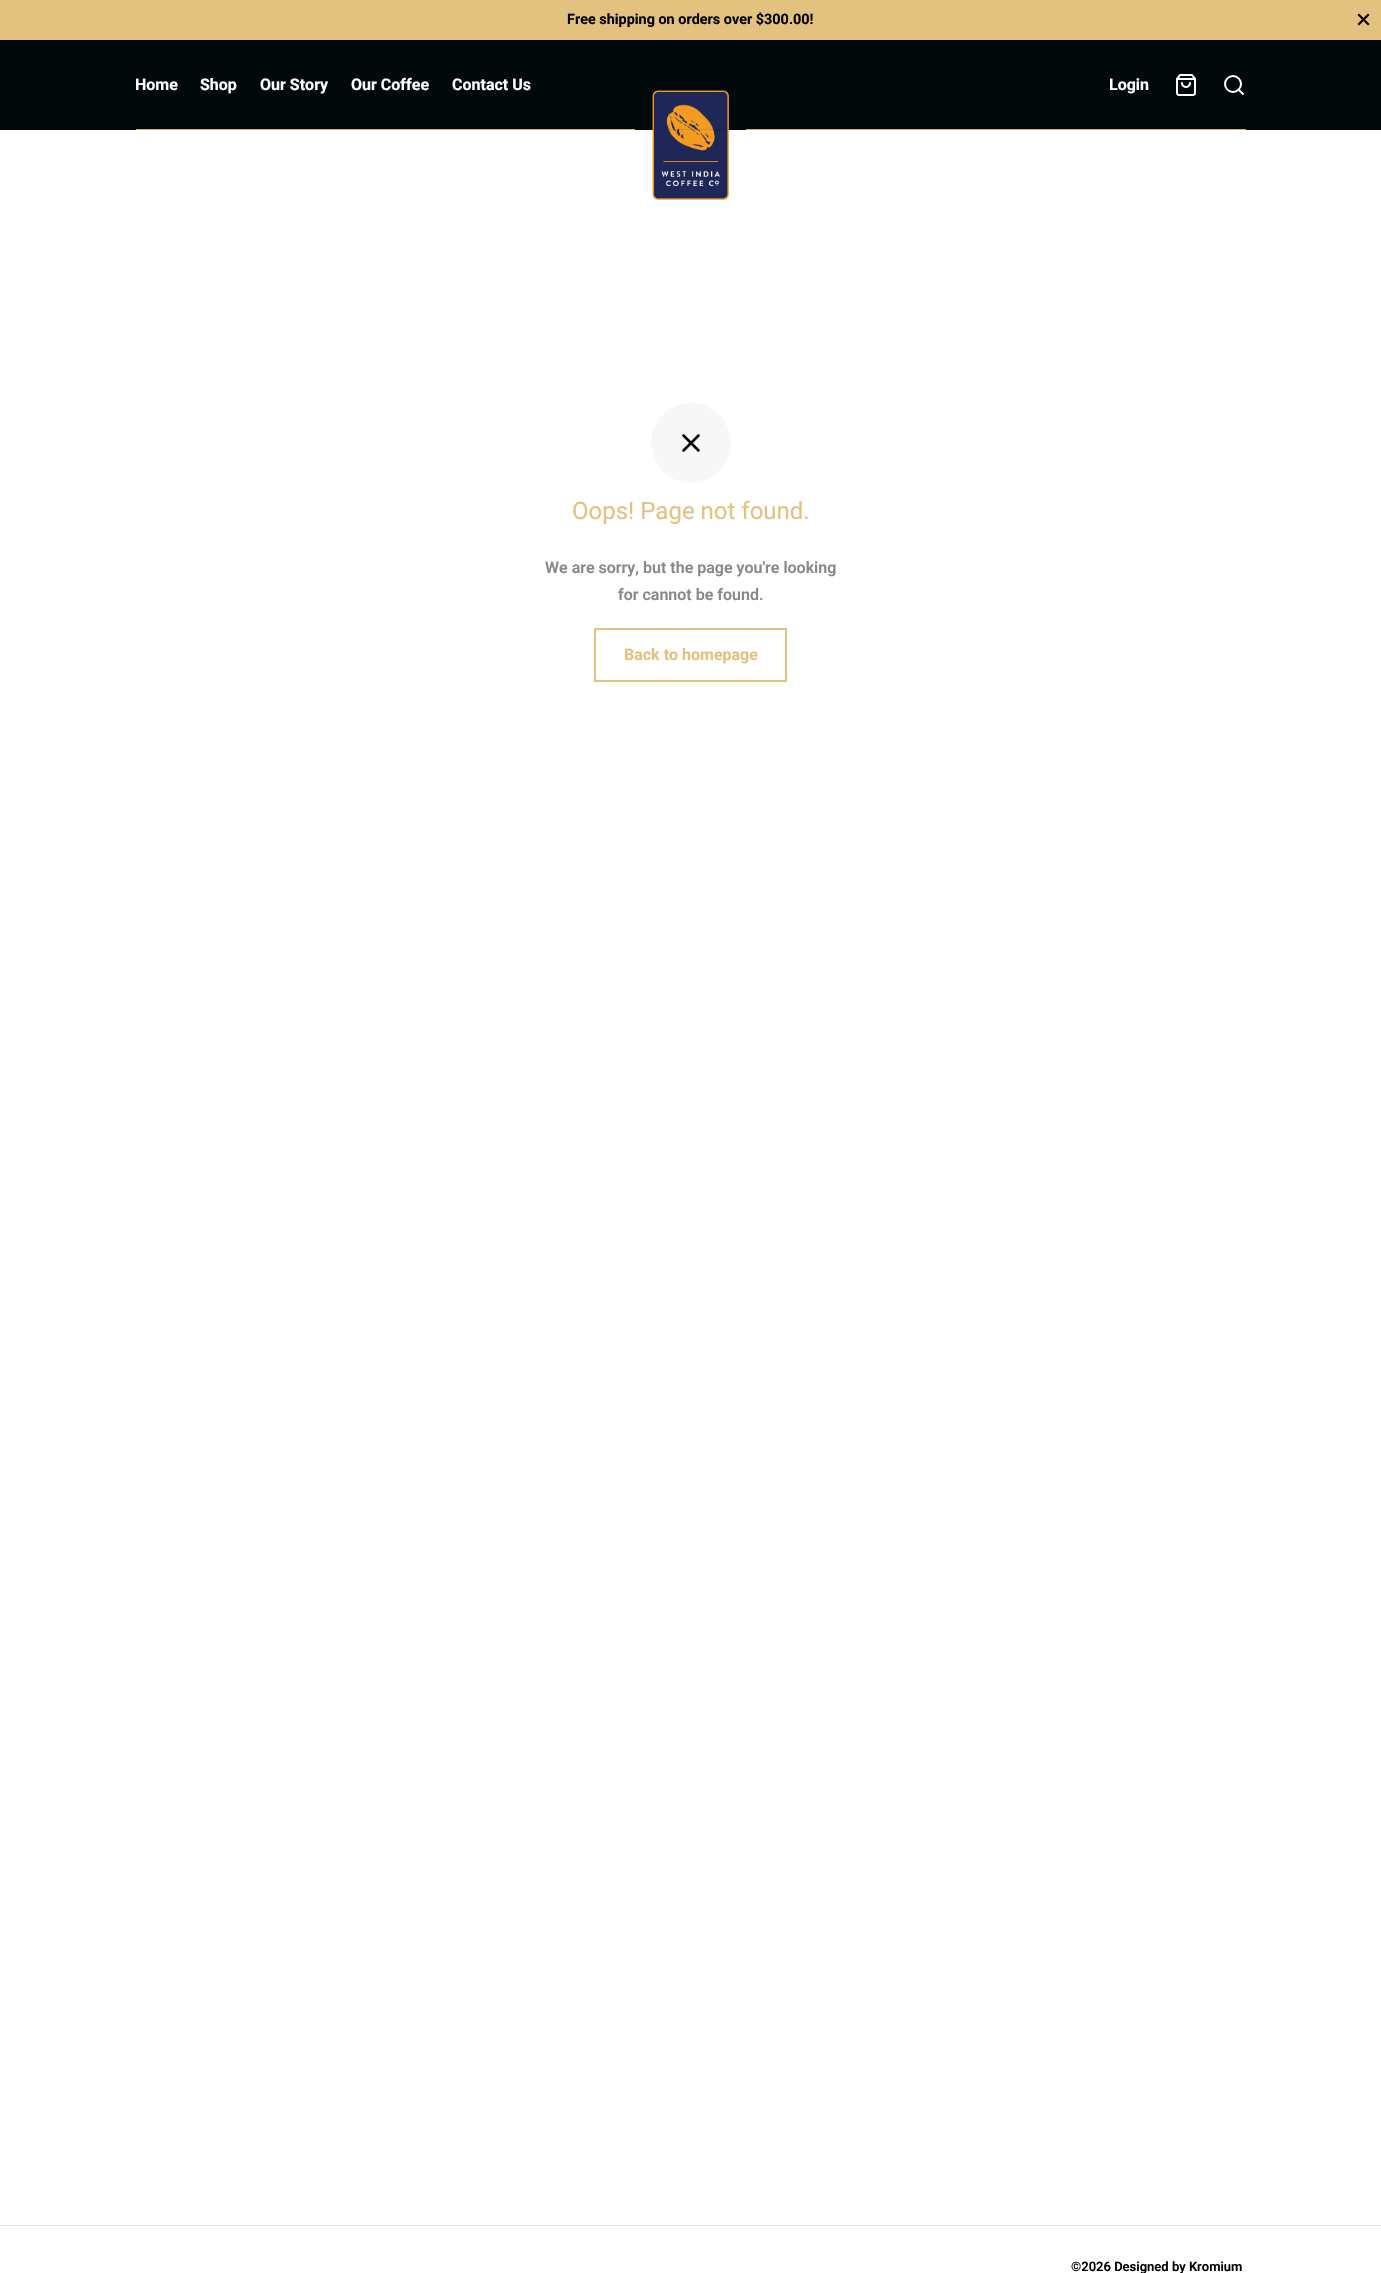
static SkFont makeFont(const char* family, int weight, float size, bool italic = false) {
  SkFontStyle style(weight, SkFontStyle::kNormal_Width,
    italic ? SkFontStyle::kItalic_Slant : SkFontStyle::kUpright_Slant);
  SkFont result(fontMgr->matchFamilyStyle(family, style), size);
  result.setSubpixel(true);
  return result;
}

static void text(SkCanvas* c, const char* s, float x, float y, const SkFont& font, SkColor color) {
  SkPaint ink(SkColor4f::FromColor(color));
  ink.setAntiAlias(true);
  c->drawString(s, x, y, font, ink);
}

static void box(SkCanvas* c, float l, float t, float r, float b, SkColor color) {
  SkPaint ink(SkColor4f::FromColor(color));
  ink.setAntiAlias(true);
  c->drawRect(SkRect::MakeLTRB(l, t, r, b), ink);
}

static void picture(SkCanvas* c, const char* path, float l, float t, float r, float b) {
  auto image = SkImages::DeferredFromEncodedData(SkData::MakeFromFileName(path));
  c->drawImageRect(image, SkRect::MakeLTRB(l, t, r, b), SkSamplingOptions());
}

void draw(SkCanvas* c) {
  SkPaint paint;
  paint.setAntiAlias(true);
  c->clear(0xffffffff);
  box(c, 0, 0, 1381, 40, 0xffe3c280);
  SkFont face1 = makeFont("Roboto", 700, 14.4f);
  text(c, "Free shipping on orders over $300.00!", 567, 24, face1, 0xff000000);
  paint.setColor(0xff000000);
  c->drawPath(SkPathBuilder().moveTo(1359, 13.5f).lineTo(1369.5f, 24).lineTo(1368, 25.5f).lineTo(1357.5f, 15).close().detach(), paint);
  c->drawPath(SkPathBuilder().moveTo(1357.5f, 24).lineTo(1368, 13.5f).lineTo(1369.5f, 15).lineTo(1359, 25.5f).close().detach(), paint);
  box(c, 0, 40, 1381, 130, 0xff01090b);
  box(c, 136, 129, 635, 130, 0xffe3c280);
  SkFont face2 = makeFont("Roboto", 700, 16);
  text(c, "Home", 135, 90, face2, 0xffffffff);
  text(c, "Shop", 200, 90, face2, 0xffffffff);
  text(c, "Our Story", 260, 90, face2, 0xffffffff);
  text(c, "Our Coffee", 351, 90, face2, 0xffffffff);
  text(c, "Contact Us", 452, 90, face2, 0xffffffff);
  box(c, 746, 129, 1246, 130, 0xffe3c280);
  text(c, "Login", 1109, 90, face2, 0xffffffff);
  picture(c, "img_01.png", 1176, 74, 1196, 96);
  paint.setStyle(SkPaint::kStroke_Style);
  paint.setStrokeWidth(2);
  paint.setColor(0xffffffff);
  c->drawCircle(1233, 84, 8, paint);
  paint.setStrokeCap(SkPaint::kRound_Cap);
  paint.setStrokeJoin(SkPaint::kRound_Join);
  c->drawPath(SkPathBuilder().moveTo(1243, 94).lineTo(1238.5f, 89.5f).detach(), paint);
  picture(c, "img_02.png", 652, 90, 729, 200);
  box(c, 136, 129, 1246, 130, 0x1a000000);
  paint.setStyle(SkPaint::kFill_Style);
  paint.setColor(0xfff7f7f7);
  c->drawCircle(691, 443, 40, paint);
  paint.setStyle(SkPaint::kStroke_Style);
  paint.setStrokeWidth(2.5f);
  paint.setColor(0xff000000);
  c->drawPath(SkPathBuilder().moveTo(698.5f, 435.5f).lineTo(683.5f, 450.5f).moveTo(683.5f, 435.5f).lineTo(698.5f, 450.5f).detach(), paint);
  SkFont face3 = makeFont("Roboto", 400, 24);
  text(c, "Oops! Page not found.", 572, 519, face3, 0xffe3c280);
  SkFont face4 = makeFont("Roboto", 600, 16);
  text(c, "We are sorry, but the page you're looking", 545, 573, face4, 0xff888888);
  text(c, "for cannot be found.", 618, 600, face4, 0xff888888);
  paint.setStrokeWidth(2);
  paint.setStrokeCap(SkPaint::kButt_Cap);
  paint.setStrokeJoin(SkPaint::kMiter_Join);
  paint.setColor(0xffe3c280);
  c->drawRect(SkRect::MakeLTRB(595, 629, 786, 681), paint);
  text(c, "Back to homepage", 624, 660, face2, 0xffe3c280);
  box(c, 0, 2225, 1381, 2226, 0xffe6e6e6);
  SkFont face5 = makeFont("Roboto", 600, 13);
  text(c, "©2026 Designed by Kromium", 1071, 2271, face5, 0xff000000);
}
